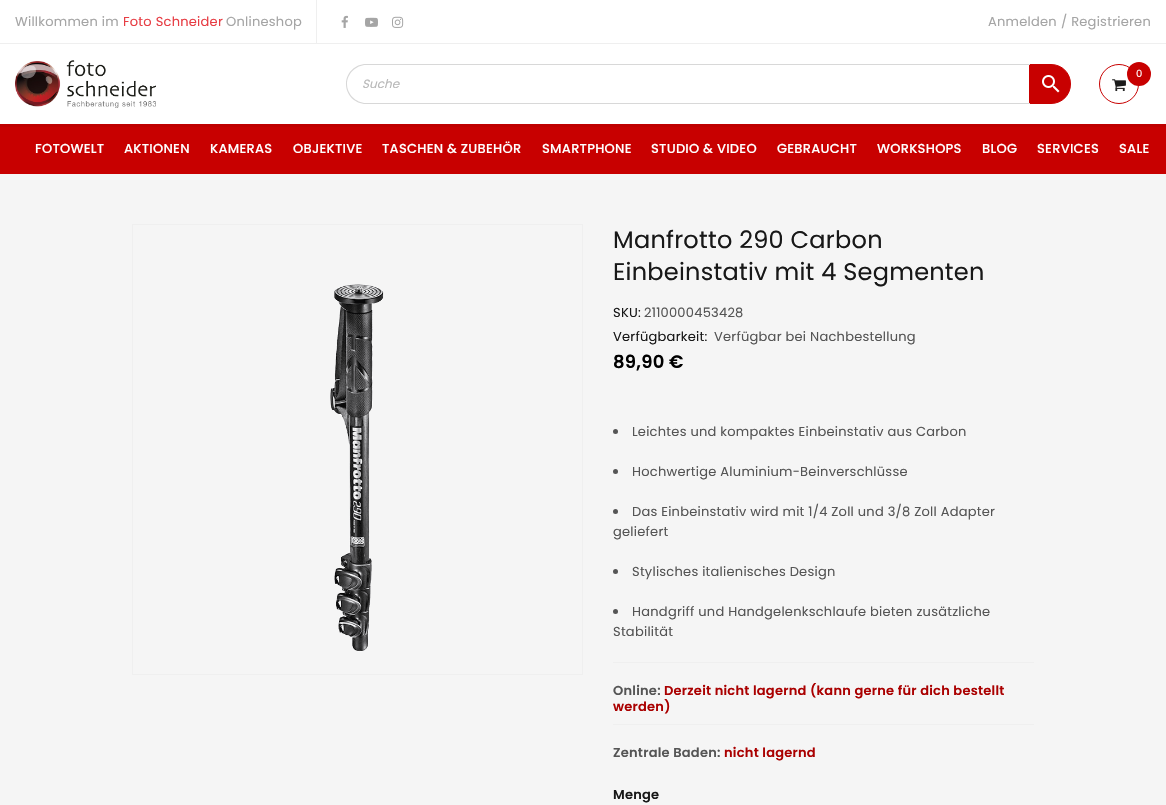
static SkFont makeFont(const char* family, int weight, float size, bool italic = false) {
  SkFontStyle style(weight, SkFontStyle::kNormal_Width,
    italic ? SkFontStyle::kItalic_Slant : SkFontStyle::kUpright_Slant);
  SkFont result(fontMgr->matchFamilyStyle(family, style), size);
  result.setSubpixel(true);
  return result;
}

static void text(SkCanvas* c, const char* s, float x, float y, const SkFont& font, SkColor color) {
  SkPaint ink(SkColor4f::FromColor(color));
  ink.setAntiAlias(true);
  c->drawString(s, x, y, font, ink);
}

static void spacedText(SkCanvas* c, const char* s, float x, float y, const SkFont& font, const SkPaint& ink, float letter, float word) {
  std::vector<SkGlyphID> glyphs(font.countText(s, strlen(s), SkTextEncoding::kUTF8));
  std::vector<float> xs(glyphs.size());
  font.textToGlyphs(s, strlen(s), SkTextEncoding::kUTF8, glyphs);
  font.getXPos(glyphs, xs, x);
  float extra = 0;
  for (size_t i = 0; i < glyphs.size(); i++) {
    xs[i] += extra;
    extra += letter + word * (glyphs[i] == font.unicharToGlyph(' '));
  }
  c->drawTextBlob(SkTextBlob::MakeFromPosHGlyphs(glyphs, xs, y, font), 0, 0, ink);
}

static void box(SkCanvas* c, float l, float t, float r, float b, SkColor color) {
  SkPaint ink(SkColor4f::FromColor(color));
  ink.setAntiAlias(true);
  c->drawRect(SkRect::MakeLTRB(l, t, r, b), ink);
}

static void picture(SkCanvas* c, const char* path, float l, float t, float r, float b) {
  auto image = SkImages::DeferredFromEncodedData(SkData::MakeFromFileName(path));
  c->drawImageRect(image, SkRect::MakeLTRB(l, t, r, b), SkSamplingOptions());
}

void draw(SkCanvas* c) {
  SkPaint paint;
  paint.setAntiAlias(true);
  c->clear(0xffffffff);
  box(c, 0, 43, 1166, 44, 0xffefefef);
  SkFont face1 = makeFont("Poppins", 400, 13);
  paint.setColor(0xffa5a5a5);
  spacedText(c, "Willkommen im", 15, 26, face1, paint, 0.25f, 0);
  paint.setColor(0xffe73d44);
  spacedText(c, "Foto Schneider", 123, 26, face1, paint, 0.25f, 0);
  paint.setColor(0xffa5a5a5);
  spacedText(c, "Onlineshop", 226, 26, face1, paint, 0.25f, 0);
  box(c, 316, 0, 317, 44, 0xffefefef);
  picture(c, "img_01.png", 341, 15, 348, 28);
  picture(c, "img_02.png", 365, 17, 378, 27);
  picture(c, "img_03.png", 392, 16, 404, 28);
  spacedText(c, "Anmelden", 988, 26, face1, paint, 0.25f, 0);
  spacedText(c, "/ Registrieren", 1061, 26, face1, paint, 0.25f, 0);
  picture(c, "img_04.png", 15, 60, 156, 108);
  paint.setStyle(SkPaint::kStroke_Style);
  paint.setStrokeWidth(1);
  paint.setColor(0xffc80000);
  c->drawCircle(1119, 84, 19.5f, paint);
  picture(c, "img_05.png", 1112, 79, 1126, 92);
  paint.setStyle(SkPaint::kFill_Style);
  c->drawCircle(1139, 74, 12, paint);
  SkFont face2 = makeFont("Poppins", 400, 10);
  paint.setColor(0xffffffff);
  spacedText(c, "0", 1136, 77, face2, paint, 0.25f, 0);
  paint.setColor(0xffc80000);
  c->drawPath(SkPathBuilder().moveTo(1029.5f, 64.5f).lineTo(1051, 64.5f).cubicTo(1062, 64.5f, 1070.5f, 73, 1070.5f, 84).cubicTo(1070.5f, 95, 1062, 103.5f, 1051, 103.5f).lineTo(1029.5f, 103.5f).close().detach(), paint);
  paint.setStyle(SkPaint::kStroke_Style);
  c->drawPath(SkPathBuilder().moveTo(1029.5f, 64.5f).lineTo(1051, 64.5f).cubicTo(1062, 64.5f, 1070.5f, 73, 1070.5f, 84).cubicTo(1070.5f, 95, 1062, 103.5f, 1051, 103.5f).lineTo(1029.5f, 103.5f).close().detach(), paint);
  paint.setStyle(SkPaint::kFill_Style);
  paint.setColor(0xffd8d8d8);
  c->drawPath(SkPathBuilder(SkPathFillType::kEvenOdd).moveTo(366, 64).lineTo(1030, 64).lineTo(1030, 104).lineTo(366, 104).cubicTo(355, 104, 346, 95, 346, 84).cubicTo(346, 73, 355, 64, 366, 64).close().moveTo(366, 65).lineTo(1030, 65).lineTo(1030, 103).lineTo(366, 103).cubicTo(356, 103, 347, 94, 347, 84).cubicTo(347, 74, 356, 65, 366, 65).close().detach(), paint);
  SkFont face3 = makeFont("Poppins", 400, 12, true);
  text(c, "Suche", 362, 88, face3, 0xffb8b8b8);
  picture(c, "img_06.png", 1042, 75, 1060, 93);
  box(c, 0, 124, 1166, 127, 0xffbe0000);
  box(c, 0, 127, 1166, 174, 0xffc80000);
  SkFont face4 = makeFont("Poppins", 500, 13);
  paint.setColor(0xffffffff);
  spacedText(c, "FOTOWELT", 35, 153, face4, paint, 0.25f, 0);
  spacedText(c, "AKTIONEN", 124, 153, face4, paint, 0.25f, 0);
  spacedText(c, "KAMERAS", 210, 153, face4, paint, 0.25f, 0);
  spacedText(c, "OBJEKTIVE", 293, 153, face4, paint, 0.25f, 0);
  spacedText(c, "TASCHEN & ZUBEHÖR", 382, 153, face4, paint, 0.25f, 0);
  spacedText(c, "SMARTPHONE", 542, 153, face4, paint, 0.25f, 0);
  spacedText(c, "STUDIO & VIDEO", 651, 153, face4, paint, 0.25f, 0);
  spacedText(c, "GEBRAUCHT", 777, 153, face4, paint, 0.25f, 0);
  spacedText(c, "WORKSHOPS", 877, 153, face4, paint, 0.25f, 0);
  spacedText(c, "BLOG", 982, 153, face4, paint, 0.25f, 0);
  spacedText(c, "SERVICES", 1037, 153, face4, paint, 0.25f, 0);
  spacedText(c, "SALE", 1119, 153, face4, paint, 0.25f, 0);
  box(c, 0, 174, 1166, 805, 0xfff5f5f5);
  paint.setStyle(SkPaint::kStroke_Style);
  paint.setColor(0xffefefef);
  c->drawRect(SkRect::MakeLTRB(132.5f, 224.5f, 582.5f, 674.5f), paint);
  picture(c, "img_07.png", 330, 284, 384, 652);
  SkFont face5 = makeFont("Poppins", 400, 24);
  paint.setStyle(SkPaint::kFill_Style);
  paint.setColor(0xff181818);
  spacedText(c, "Manfrotto 290 Carbon", 613, 248, face5, paint, 0.25f, 0);
  spacedText(c, "Einbeinstativ mit 4 Segmenten", 613, 280, face5, paint, 0.25f, 0);
  spacedText(c, "SKU:", 613, 317, face1, paint, 0.25f, 0);
  paint.setColor(0xff555555);
  spacedText(c, "2110000453428", 644, 317, face1, paint, 0.25f, 0);
  paint.setColor(0xff181818);
  spacedText(c, "Verfügbarkeit:", 613, 341, face1, paint, 0.25f, 0);
  paint.setColor(0xff555555);
  spacedText(c, "Verfügbar bei Nachbestellung", 714, 341, face1, paint, 0.25f, 0);
  SkFont face6 = makeFont("Poppins", 600, 18);
  paint.setColor(0xff000000);
  spacedText(c, "89,90 €", 613, 368, face6, paint, 0.25f, 0);
  paint.setColor(0xff555555);
  c->drawCircle(615.5f, 431.5f, 2.5f, paint);
  spacedText(c, "Leichtes und kompaktes Einbeinstativ aus Carbon", 632, 436, face1, paint, 0.25f, 0);
  c->drawCircle(615.5f, 471.5f, 2.5f, paint);
  spacedText(c, "Hochwertige Aluminium-Beinverschlüsse", 632, 476, face1, paint, 0.25f, 0);
  c->drawCircle(615.5f, 511.5f, 2.5f, paint);
  spacedText(c, "Das Einbeinstativ wird mit 1/4 Zoll und 3/8 Zoll Adapter", 632, 516, face1, paint, 0.25f, 0);
  spacedText(c, "geliefert", 613, 536, face1, paint, 0.25f, 0);
  c->drawCircle(615.5f, 571.5f, 2.5f, paint);
  spacedText(c, "Stylisches italienisches Design", 632, 576, face1, paint, 0.25f, 0);
  c->drawCircle(615.5f, 611.5f, 2.5f, paint);
  spacedText(c, "Handgriff und Handgelenkschlaufe bieten zusätzliche", 632, 616, face1, paint, 0.25f, 0);
  spacedText(c, "Stabilität", 613, 636, face1, paint, 0.25f, 0);
  box(c, 613, 662, 1034, 663, 0xffefefef);
  SkFont face7 = makeFont("Poppins", 600, 13);
  spacedText(c, "Online:", 613, 695, face7, paint, 0.25f, 0);
  paint.setColor(0xffaa0000);
  spacedText(c, "Derzeit nicht lagernd (kann gerne für dich bestellt", 664, 695, face7, paint, 0.25f, 0);
  spacedText(c, "werden)", 613, 711, face7, paint, 0.25f, 0);
  box(c, 613, 724, 1034, 725, 0xffefefef);
  paint.setColor(0xff555555);
  spacedText(c, "Zentrale Baden:", 613, 757, face7, paint, 0.25f, 0);
  paint.setColor(0xffaa0000);
  spacedText(c, "nicht lagernd", 724, 757, face7, paint, 0.25f, 0);
  paint.setColor(0xff181818);
  spacedText(c, "Menge", 613, 799, face7, paint, 0.25f, 0);
}
